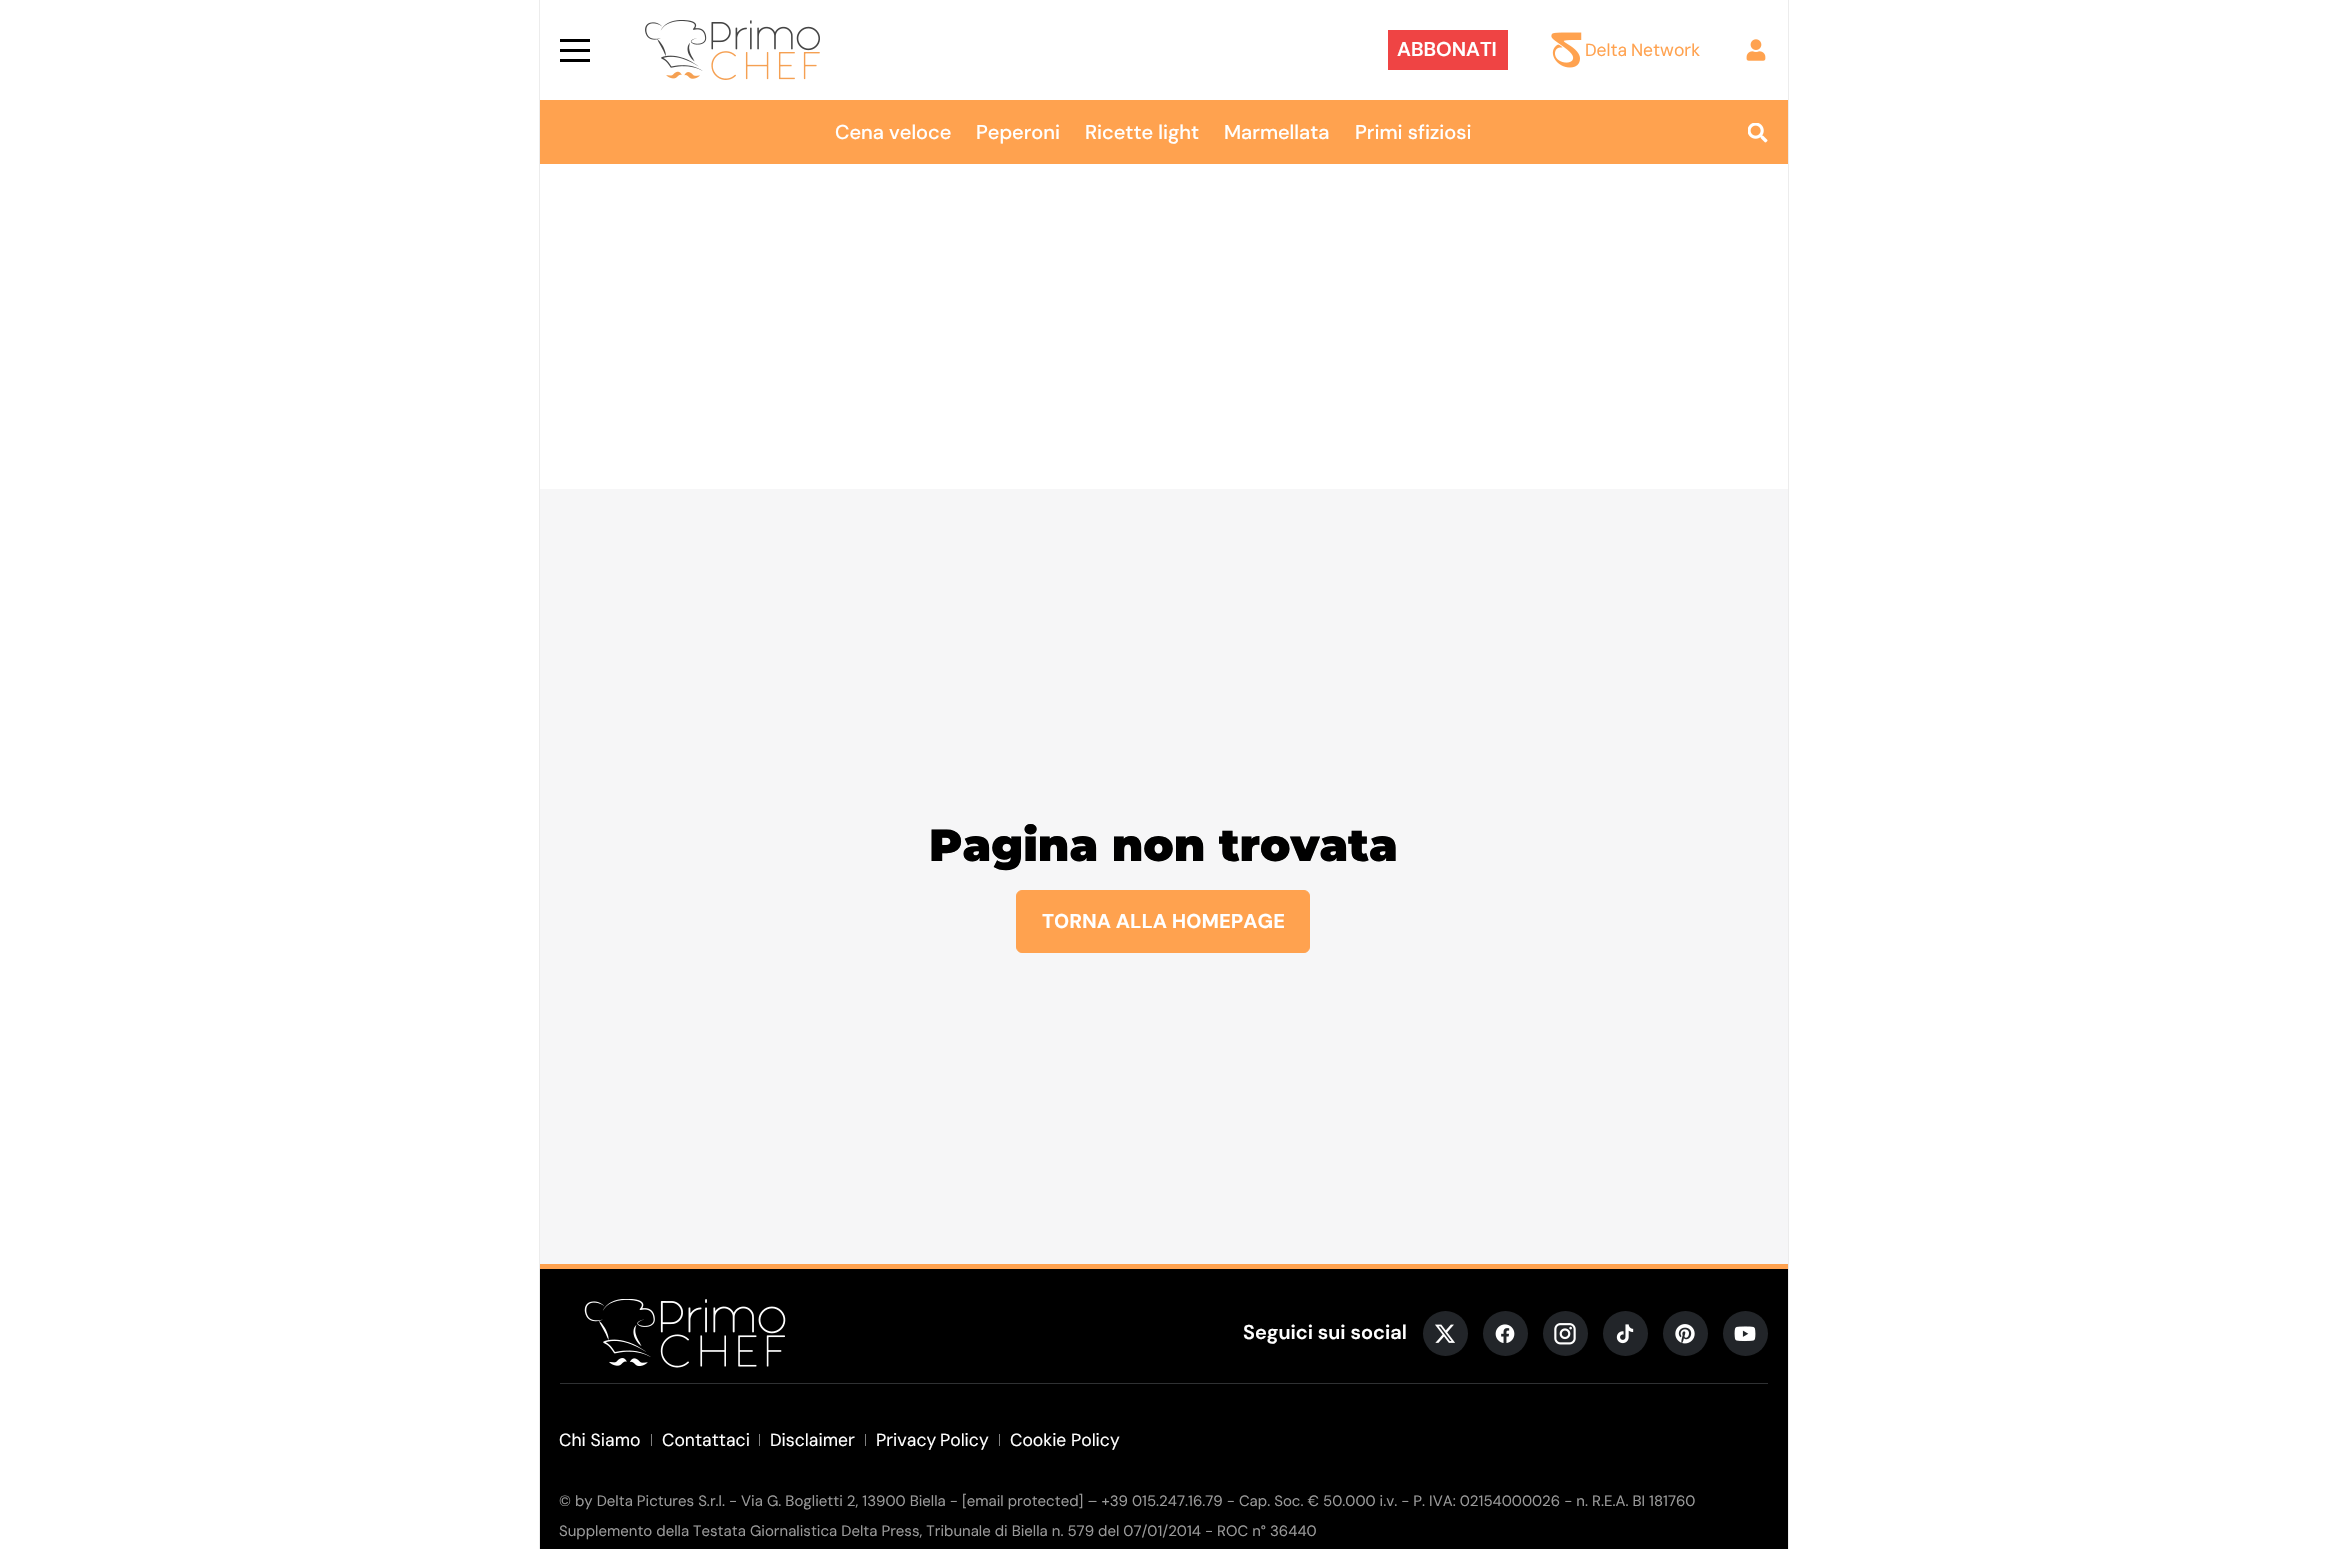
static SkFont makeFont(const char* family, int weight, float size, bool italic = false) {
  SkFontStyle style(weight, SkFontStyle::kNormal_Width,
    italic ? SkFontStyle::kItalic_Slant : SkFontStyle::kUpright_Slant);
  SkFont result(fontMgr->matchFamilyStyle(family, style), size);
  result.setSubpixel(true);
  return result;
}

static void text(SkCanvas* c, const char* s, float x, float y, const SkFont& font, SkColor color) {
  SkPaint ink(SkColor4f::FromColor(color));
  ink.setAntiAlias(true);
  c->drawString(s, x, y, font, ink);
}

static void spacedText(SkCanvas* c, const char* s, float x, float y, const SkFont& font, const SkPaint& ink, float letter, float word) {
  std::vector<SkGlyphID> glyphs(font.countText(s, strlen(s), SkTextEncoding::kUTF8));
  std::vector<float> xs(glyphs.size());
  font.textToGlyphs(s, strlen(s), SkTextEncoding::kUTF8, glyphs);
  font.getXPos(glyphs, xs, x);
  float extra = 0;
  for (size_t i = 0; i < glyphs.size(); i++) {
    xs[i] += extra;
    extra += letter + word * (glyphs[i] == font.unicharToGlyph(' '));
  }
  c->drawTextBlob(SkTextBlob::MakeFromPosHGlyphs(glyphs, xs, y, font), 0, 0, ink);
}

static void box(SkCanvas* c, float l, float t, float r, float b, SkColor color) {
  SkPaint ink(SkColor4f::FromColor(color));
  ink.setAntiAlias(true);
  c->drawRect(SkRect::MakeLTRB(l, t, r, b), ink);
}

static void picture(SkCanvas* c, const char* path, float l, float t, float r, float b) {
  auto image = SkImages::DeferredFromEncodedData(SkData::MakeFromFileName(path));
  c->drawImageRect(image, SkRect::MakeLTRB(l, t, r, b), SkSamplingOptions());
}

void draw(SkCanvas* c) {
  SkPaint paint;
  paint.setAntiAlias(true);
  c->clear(0xffffffff);
  box(c, 1788, 0, 1789, 1549, 0xffececec);
  box(c, 539, 0, 540, 1549, 0xffececec);
  box(c, 560, 39, 590, 42, 0xff000000);
  box(c, 560, 49, 590, 52, 0xff000000);
  box(c, 560, 59, 590, 62, 0xff000000);
  picture(c, "img_01.png", 645, 20, 820, 80);
  box(c, 1388, 30, 1508, 70, 0xffef4444);
  SkFont face1 = makeFont("DM Sans", 600, 20);
  text(c, "ABBONATI", 1397, 56, face1, 0xffffffff);
  picture(c, "img_02.png", 1551, 32, 1582, 68);
  SkFont face2 = makeFont("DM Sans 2", 400, 17.5f);
  paint.setColor(0xffffa24f);
  spacedText(c, "Delta Network", 1585, 56, face2, paint, 0, -1);
  picture(c, "img_03.png", 1746, 39, 1766, 61);
  box(c, 540, 100, 1788, 164, 0xffffa24f);
  SkFont face3 = makeFont("DM Sans", 500, 20);
  text(c, "Cena veloce", 835, 139, face3, 0xffffffff);
  text(c, "Peperoni", 976, 139, face3, 0xffffffff);
  text(c, "Ricette light", 1085, 139, face3, 0xffffffff);
  text(c, "Marmellata", 1224, 139, face3, 0xffffffff);
  text(c, "Primi sfiziosi", 1355, 139, face3, 0xffffffff);
  picture(c, "img_04.png", 1748, 123, 1768, 143);
  box(c, 540, 489, 1788, 1264, 0xfff6f6f7);
  SkFont face4 = makeFont("Montserrat", 100, 45);
  text(c, "Pagina non trovata", 929, 861, face4, 0xff000000);
  c->drawRoundRect(SkRect::MakeLTRB(1016.5f, 890.5f, 1309.5f, 952.5f), 5.5f, 5.5f, paint);
  paint.setStyle(SkPaint::kStroke_Style);
  paint.setStrokeWidth(1);
  c->drawRoundRect(SkRect::MakeLTRB(1016.5f, 890.5f, 1309.5f, 952.5f), 5.5f, 5.5f, paint);
  SkFont face5 = makeFont("DM Sans", 700, 20);
  text(c, "TORNA ALLA HOMEPAGE", 1042, 928, face5, 0xffffffff);
  box(c, 540, 1269, 1788, 1549, 0xff000000);
  box(c, 540, 1264, 1788, 1269, 0xffffa24f);
  box(c, 560, 1383, 1768, 1384, 0xff2f3133);
  picture(c, "img_05.png", 584, 1299, 786, 1368);
  text(c, "Seguici sui social", 1243, 1339, face1, 0xffffffff);
  paint.setStyle(SkPaint::kFill_Style);
  paint.setColor(0xff222529);
  c->drawCircle(1445.5f, 1333.5f, 22.5f, paint);
  picture(c, "img_06.png", 1435, 1324, 1455, 1343);
  c->drawCircle(1505.5f, 1333.5f, 22.5f, paint);
  picture(c, "img_07.png", 1495, 1324, 1515, 1343);
  c->drawCircle(1565.5f, 1333.5f, 22.5f, paint);
  picture(c, "img_08.png", 1554, 1323, 1576, 1345);
  c->drawCircle(1625.5f, 1333.5f, 22.5f, paint);
  picture(c, "img_09.png", 1616, 1324, 1634, 1344);
  c->drawCircle(1685.5f, 1333.5f, 22.5f, paint);
  picture(c, "img_10.png", 1675, 1324, 1695, 1344);
  c->drawCircle(1745.5f, 1333.5f, 22.5f, paint);
  picture(c, "img_11.png", 1734, 1326, 1756, 1342);
  box(c, 651, 1434, 652, 1446, 0xff808080);
  text(c, "Chi Siamo", 559, 1446, face2, 0xffffffff);
  box(c, 759, 1434, 760, 1446, 0xff808080);
  text(c, "Contattaci", 662, 1446, face2, 0xffffffff);
  box(c, 865, 1434, 866, 1446, 0xff808080);
  text(c, "Disclaimer", 770, 1446, face2, 0xffffffff);
  box(c, 999, 1434, 1000, 1446, 0xff808080);
  paint.setColor(0xffffffff);
  spacedText(c, "Privacy Policy", 876, 1446, face2, paint, 0, -1);
  text(c, "Cookie Policy", 1010, 1446, face2, 0xffffffff);
  SkFont face6 = makeFont("DM Sans", 400, 15);
  text(c, "© by Delta Pictures S.r.l. - Via G. Boglietti 2, 13900 Biella - [email protected] – +39 015.247.16.79 - Cap. Soc. € 50.000 i.v. - P. IVA: 02154000026 - n. R.E.A. BI 181760", 559, 1506, face6, 0xff999999);
  text(c, "Supplemento della Testata Giornalistica Delta Press, Tribunale di Biella n. 579 del 07/01/2014 - ROC n° 36440", 559, 1536, face6, 0xff999999);
}
